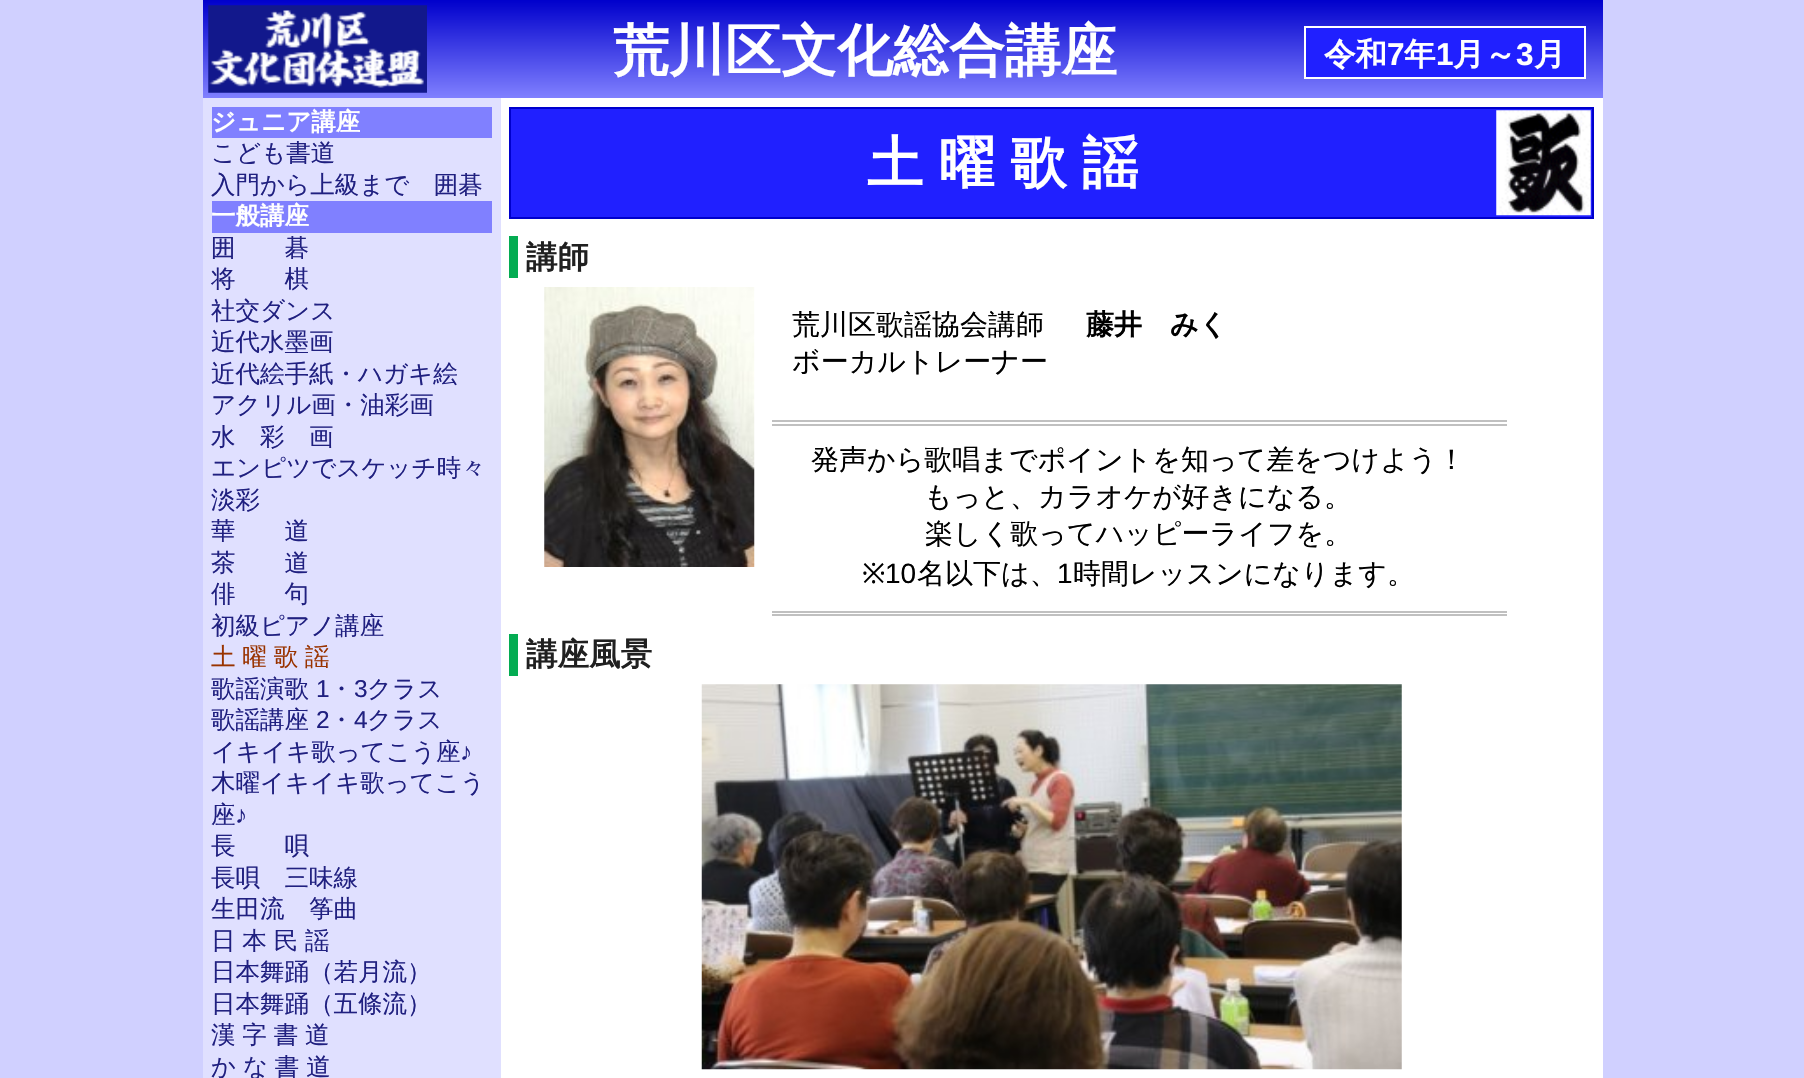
static SkFont makeFont(const char* family, int weight, float size, bool italic = false) {
  SkFontStyle style(weight, SkFontStyle::kNormal_Width,
    italic ? SkFontStyle::kItalic_Slant : SkFontStyle::kUpright_Slant);
  SkFont result(fontMgr->matchFamilyStyle(family, style), size);
  result.setSubpixel(true);
  return result;
}

static void text(SkCanvas* c, const char* s, float x, float y, const SkFont& font, SkColor color) {
  SkPaint ink(SkColor4f::FromColor(color));
  ink.setAntiAlias(true);
  c->drawString(s, x, y, font, ink);
}

static void spacedText(SkCanvas* c, const char* s, float x, float y, const SkFont& font, const SkPaint& ink, float letter, float word) {
  std::vector<SkGlyphID> glyphs(font.countText(s, strlen(s), SkTextEncoding::kUTF8));
  std::vector<float> xs(glyphs.size());
  font.textToGlyphs(s, strlen(s), SkTextEncoding::kUTF8, glyphs);
  font.getXPos(glyphs, xs, x);
  float extra = 0;
  for (size_t i = 0; i < glyphs.size(); i++) {
    xs[i] += extra;
    extra += letter + word * (glyphs[i] == font.unicharToGlyph(' '));
  }
  c->drawTextBlob(SkTextBlob::MakeFromPosHGlyphs(glyphs, xs, y, font), 0, 0, ink);
}

static void box(SkCanvas* c, float l, float t, float r, float b, SkColor color) {
  SkPaint ink(SkColor4f::FromColor(color));
  ink.setAntiAlias(true);
  c->drawRect(SkRect::MakeLTRB(l, t, r, b), ink);
}

static void picture(SkCanvas* c, const char* path, float l, float t, float r, float b) {
  auto image = SkImages::DeferredFromEncodedData(SkData::MakeFromFileName(path));
  c->drawImageRect(image, SkRect::MakeLTRB(l, t, r, b), SkSamplingOptions());
}

void draw(SkCanvas* c) {
  SkPaint paint;
  paint.setAntiAlias(true);
  c->clear(0xffd0d0ff);
  box(c, 501, 98, 1603, 1078, 0xffffffff);
  {
    const SkColor colors[] = {0xff0000cc, 0xff8080ff};
    const float stops[] = {0, 1};
    const SkPoint ends[] = {{203, 0}, {203, 98}};
    paint.setShader(SkGradientShader::MakeLinear(ends, colors, stops, 2, SkTileMode::kClamp));
    paint.setAlpha(255);
  }
  c->drawRect(SkRect::MakeLTRB(203, 0, 1603, 98), paint);
  picture(c, "img_01.png", 208, 5, 427, 93);
  SkFont face1 = makeFont("WenQuanYi Zen Hei", 700, 56);
  text(c, "荒川区文化総合講座", 613, 70, face1, 0xffffffff);
  paint.setShader(nullptr);
  paint.setColor(0xff2020ff);
  c->drawRect(SkRect::MakeLTRB(1305, 27, 1585, 78), paint);
  paint.setStyle(SkPaint::kStroke_Style);
  paint.setStrokeWidth(2);
  paint.setColor(0xffffffff);
  c->drawRect(SkRect::MakeLTRB(1305, 27, 1585, 78), paint);
  SkFont face2 = makeFont("WenQuanYi Zen Hei", 700, 31.5f);
  text(c, "令和", 1324, 65, face2, 0xffffffff);
  SkFont face3 = makeFont("Liberation Sans", 700, 31.5f);
  text(c, "7", 1387, 65, face3, 0xffffffff);
  text(c, "年", 1404, 65, face2, 0xffffffff);
  text(c, "1", 1436, 65, face3, 0xffffffff);
  text(c, "月～", 1453, 65, face2, 0xffffffff);
  text(c, "3", 1516, 65, face3, 0xffffffff);
  text(c, "月", 1534, 65, face2, 0xffffffff);
  box(c, 203, 98, 501, 1078, 0xffe0e0ff);
  box(c, 212, 107, 492, 138, 0xff8080ff);
  SkFont face4 = makeFont("WenQuanYi Zen Hei", 700, 24.5f);
  text(c, "ジュニア講座", 211, 130, face4, 0xffffffff);
  SkFont face5 = makeFont("WenQuanYi Zen Hei", 500, 24.5f);
  text(c, "こども書道", 211, 161, face5, 0xff202080);
  text(c, "入門から上級まで　囲碁", 211, 193, face5, 0xff202080);
  box(c, 212, 201, 492, 233, 0xff8080ff);
  text(c, "一般講座", 211, 224, face4, 0xffffffff);
  text(c, "囲　　碁", 211, 256, face5, 0xff202080);
  text(c, "将　　棋", 211, 287, face5, 0xff202080);
  text(c, "社交ダンス", 211, 319, face5, 0xff202080);
  text(c, "近代水墨画", 211, 350, face5, 0xff202080);
  text(c, "近代絵手紙・ハガキ絵", 211, 382, face5, 0xff202080);
  text(c, "アクリル画・油彩画", 211, 413, face5, 0xff202080);
  text(c, "水　彩　画", 211, 445, face5, 0xff202080);
  text(c, "エンピツでスケッチ時々", 211, 476, face5, 0xff202080);
  text(c, "淡彩", 211, 508, face5, 0xff202080);
  text(c, "華　　道", 211, 539, face5, 0xff202080);
  text(c, "茶　　道", 211, 571, face5, 0xff202080);
  text(c, "俳　　句", 211, 602, face5, 0xff202080);
  text(c, "初級ピアノ講座", 211, 634, face5, 0xff202080);
  paint.setStyle(SkPaint::kFill_Style);
  paint.setColor(0xff993300);
  spacedText(c, "土 曜 歌 謡", 211, 665, face5, paint, 0, -0.5f);
  text(c, "歌謡演歌", 211, 697, face5, 0xff202080);
  SkFont face6 = makeFont("Liberation Sans", 400, 24.5f);
  text(c, "1", 316, 697, face6, 0xff202080);
  text(c, "・", 329, 697, face5, 0xff202080);
  text(c, "3", 354, 697, face6, 0xff202080);
  text(c, "クラス", 367, 697, face5, 0xff202080);
  text(c, "歌謡講座", 211, 728, face5, 0xff202080);
  text(c, "2", 316, 728, face6, 0xff202080);
  text(c, "・", 329, 728, face5, 0xff202080);
  text(c, "4", 354, 728, face6, 0xff202080);
  text(c, "クラス", 367, 728, face5, 0xff202080);
  text(c, "イキイキ歌ってこう座", 211, 760, face5, 0xff202080);
  text(c, "♪", 460, 760, face6, 0xff202080);
  text(c, "木曜イキイキ歌ってこう", 211, 791, face5, 0xff202080);
  text(c, "座", 211, 823, face5, 0xff202080);
  text(c, "♪", 235, 823, face6, 0xff202080);
  text(c, "長　　唄", 211, 854, face5, 0xff202080);
  text(c, "長唄　三味線", 211, 886, face5, 0xff202080);
  text(c, "生田流　筝曲", 211, 917, face5, 0xff202080);
  paint.setColor(0xff202080);
  spacedText(c, "日 本 民 謡", 211, 949, face5, paint, 0, -0.5f);
  text(c, "日本舞踊（若月流）", 211, 980, face5, 0xff202080);
  text(c, "日本舞踊（五條流）", 211, 1012, face5, 0xff202080);
  spacedText(c, "漢 字 書 道", 211, 1043, face5, paint, 0, -0.5f);
  spacedText(c, "か な 書 道", 211, 1075, face5, paint, 0, -0.5f);
  paint.setColor(0xff2020ff);
  c->drawRect(SkRect::MakeLTRB(510, 108, 1593, 218), paint);
  paint.setStyle(SkPaint::kStroke_Style);
  paint.setColor(0xff0000cc);
  c->drawRect(SkRect::MakeLTRB(510, 108, 1593, 218), paint);
  paint.setStyle(SkPaint::kFill_Style);
  paint.setColor(0xffffffff);
  spacedText(c, "土 曜 歌 謡", 867, 182, face1, paint, 0, -1);
  picture(c, "img_02.png", 1496, 110, 1591, 216);
  box(c, 509, 236, 518, 278, 0xff04ac52);
  text(c, "講師", 526, 268, face2, 0xff202020);
  picture(c, "img_03.png", 544, 287, 755, 567);
  SkFont face7 = makeFont("WenQuanYi Zen Hei", 500, 28);
  text(c, "荒川区歌謡協会講師", 792, 334, face7, 0xff000000);
  text(c, "ボーカルトレーナー", 792, 371, face7, 0xff000000);
  SkFont face8 = makeFont("WenQuanYi Zen Hei", 700, 28);
  text(c, "藤井　みく", 1086, 334, face8, 0xff000000);
  box(c, 772, 420, 1507, 422, 0xffc0c0c0);
  box(c, 772, 424, 1507, 426, 0xffc0c0c0);
  box(c, 772, 611, 1507, 613, 0xffc0c0c0);
  box(c, 772, 614, 1507, 616, 0xffc0c0c0);
  text(c, "発声から歌唱までポイントを知って差をつけよう！", 811, 469, face7, 0xff000000);
  text(c, "もっと、カラオケが好きになる。", 924, 506, face7, 0xff000000);
  text(c, "楽しく歌ってハッピーライフを。", 925, 543, face7, 0xff000000);
  SkFont face9 = makeFont("Noto Sans", 400, 28);
  text(c, "※", 862, 583, face9, 0xff000000);
  SkFont face10 = makeFont("Liberation Sans", 400, 28);
  text(c, "10", 885, 583, face10, 0xff000000);
  text(c, "名以下は、", 917, 583, face7, 0xff000000);
  text(c, "1", 1057, 583, face10, 0xff000000);
  text(c, "時間レッスンになります。", 1073, 583, face7, 0xff000000);
  box(c, 509, 634, 518, 676, 0xff04ac52);
  text(c, "講座風景", 526, 665, face2, 0xff202020);
  picture(c, "img_04.png", 701, 684, 1402, 1070);
}
